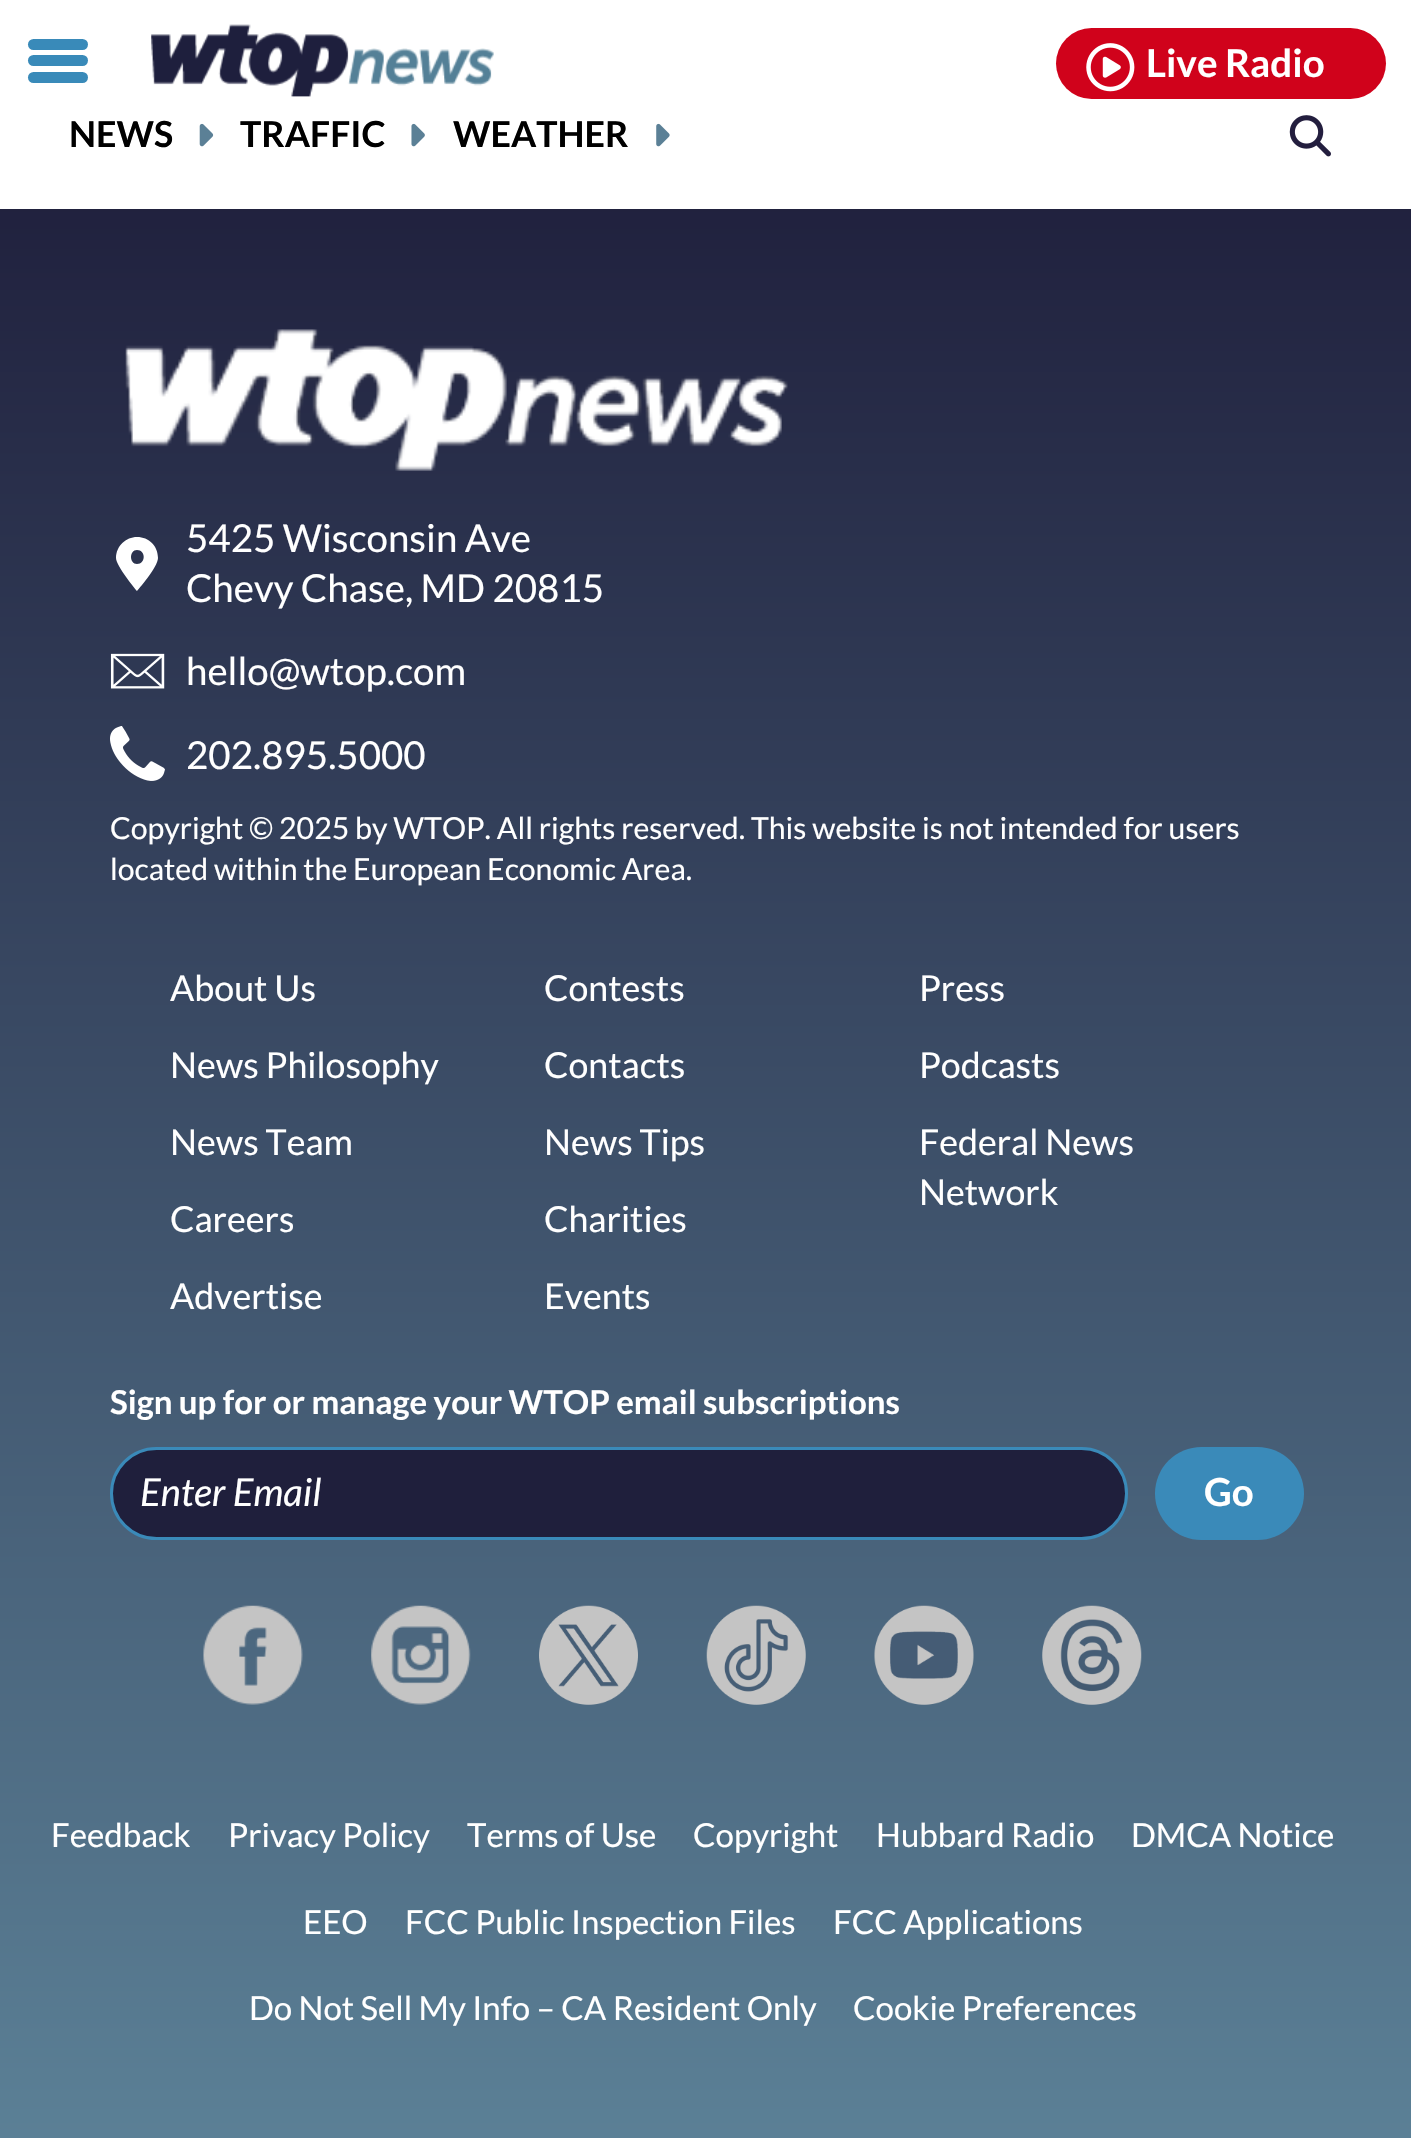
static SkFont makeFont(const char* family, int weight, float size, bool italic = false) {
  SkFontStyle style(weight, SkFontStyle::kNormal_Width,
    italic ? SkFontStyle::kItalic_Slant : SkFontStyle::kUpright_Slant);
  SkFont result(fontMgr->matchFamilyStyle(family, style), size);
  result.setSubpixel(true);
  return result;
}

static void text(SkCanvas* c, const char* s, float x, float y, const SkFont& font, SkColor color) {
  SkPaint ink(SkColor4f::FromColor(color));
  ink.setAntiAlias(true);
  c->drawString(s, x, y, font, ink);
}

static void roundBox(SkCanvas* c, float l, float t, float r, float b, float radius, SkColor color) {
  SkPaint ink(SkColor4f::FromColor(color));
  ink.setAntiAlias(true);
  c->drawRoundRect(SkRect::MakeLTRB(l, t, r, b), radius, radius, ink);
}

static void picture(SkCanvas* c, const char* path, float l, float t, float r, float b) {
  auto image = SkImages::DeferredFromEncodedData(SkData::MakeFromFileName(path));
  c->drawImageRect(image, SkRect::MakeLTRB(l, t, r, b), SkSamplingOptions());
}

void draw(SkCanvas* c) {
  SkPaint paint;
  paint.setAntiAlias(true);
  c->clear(0xffffffff);
  roundBox(c, 28, 39, 88, 50, 5.5f, 0xff398ab9);
  roundBox(c, 28, 55, 88, 66, 5.5f, 0xff398ab9);
  roundBox(c, 28, 72, 88, 83, 5.5f, 0xff398ab9);
  picture(c, "img_01.png", 151, 24, 494, 97);
  roundBox(c, 1056, 28, 1386, 99, 35.5f, 0xffd0021b);
  picture(c, "img_02.png", 1086, 43, 1135, 92);
  SkFont face1 = makeFont("Lato", 700, 38.5f);
  text(c, "Live Radio", 1146, 77, face1, 0xffffffff);
  SkFont face2 = makeFont("Lato", 700, 35.75f);
  text(c, "NEWS", 69, 147, face2, 0xff000000);
  picture(c, "img_03.png", 199, 123, 214, 147);
  text(c, "TRAFFIC", 240, 147, face2, 0xff000000);
  picture(c, "img_04.png", 411, 123, 425, 147);
  text(c, "WEATHER", 453, 147, face2, 0xff000000);
  picture(c, "img_05.png", 656, 123, 670, 147);
  picture(c, "img_06.png", 1289, 115, 1331, 157);
  {
    const SkColor colors[] = {0xff1f1f3c, 0xff5b8096};
    const float stops[] = {0, 1};
    const SkPoint ends[] = {{707, 157}, {707, 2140}};
    paint.setShader(SkGradientShader::MakeLinear(ends, colors, stops, 2, SkTileMode::kClamp));
    paint.setAlpha(255);
  }
  c->drawRect(SkRect::MakeLTRB(0, 209, 1411, 2138), paint);
  picture(c, "img_07.png", 125, 329, 788, 471);
  paint.setShader(nullptr);
  paint.setColor(0xffffffff);
  c->drawPath(SkPathBuilder().moveTo(137, 537).cubicTo(126, 537, 116, 546, 116, 558).cubicTo(116, 566, 137, 591, 137, 591).cubicTo(137, 591, 158, 567, 158, 558).cubicTo(158, 546, 149, 537, 137, 537).close().moveTo(137, 564).cubicTo(129, 564, 129, 550, 137, 550).cubicTo(146, 550, 146, 564, 137, 564).close().detach(), paint);
  SkFont face3 = makeFont("Lato", 400, 38.5f);
  text(c, "5425 Wisconsin Ave", 186, 552, face3, 0xffffffff);
  text(c, "Chevy Chase, MD 20815", 186, 602, face3, 0xffffffff);
  picture(c, "img_08.png", 110, 653, 165, 689);
  text(c, "hello@wtop.com", 186, 685, face3, 0xffffffff);
  picture(c, "img_09.png", 110, 726, 165, 781);
  text(c, "202.895.5000", 186, 769, face3, 0xffffffff);
  SkFont face4 = makeFont("Lato", 400, 30.25f);
  text(c, "Copyright © 2025 by WTOP. All rights reserved. This website is not intended for users", 110, 839, face4, 0xffffffff);
  text(c, "located within the European Economic Area.", 110, 880, face4, 0xffffffff);
  SkFont face5 = makeFont("Lato", 400, 35.75f);
  text(c, "About Us", 170, 1001, face5, 0xffffffff);
  text(c, "Contests", 544, 1001, face5, 0xffffffff);
  text(c, "Press", 919, 1001, face5, 0xffffffff);
  text(c, "News Philosophy", 170, 1078, face5, 0xffffffff);
  text(c, "Contacts", 544, 1078, face5, 0xffffffff);
  text(c, "Podcasts", 919, 1078, face5, 0xffffffff);
  text(c, "News Team", 170, 1155, face5, 0xffffffff);
  text(c, "News Tips", 544, 1155, face5, 0xffffffff);
  text(c, "Federal News", 919, 1155, face5, 0xffffffff);
  text(c, "Network", 919, 1205, face5, 0xffffffff);
  text(c, "Careers", 170, 1232, face5, 0xffffffff);
  text(c, "Charities", 544, 1232, face5, 0xffffffff);
  text(c, "Advertise", 170, 1309, face5, 0xffffffff);
  text(c, "Events", 544, 1309, face5, 0xffffffff);
  SkFont face6 = makeFont("Lato", 700, 33);
  text(c, "Sign up for or manage your WTOP email subscriptions", 110, 1414, face6, 0xffffffff);
  paint.setColor(0xff1f1f3c);
  c->drawRoundRect(SkRect::MakeLTRB(111.5f, 1448.5f, 1126.5f, 1538.5f), 45, 45, paint);
  paint.setStyle(SkPaint::kStroke_Style);
  paint.setStrokeWidth(3);
  paint.setColor(0xff3a8ab9);
  c->drawRoundRect(SkRect::MakeLTRB(111.5f, 1448.5f, 1126.5f, 1538.5f), 45, 45, paint);
  SkFont face7 = makeFont("Lato", 400, 38.5f, true);
  text(c, "Enter Email", 140, 1506, face7, 0xffffffff);
  roundBox(c, 1155, 1447, 1304, 1540, 46.5f, 0xff3a8ab9);
  text(c, "Go", 1204, 1506, face1, 0xffffffff);
  picture(c, "img_10.png", 203, 1605, 303, 1705);
  picture(c, "img_11.png", 371, 1605, 471, 1705);
  picture(c, "img_12.png", 539, 1605, 638, 1705);
  picture(c, "img_13.png", 706, 1605, 806, 1705);
  picture(c, "img_14.png", 874, 1605, 974, 1705);
  picture(c, "img_15.png", 1042, 1605, 1142, 1705);
  SkFont face8 = makeFont("Lato", 400, 33);
  text(c, "Feedback", 51, 1847, face8, 0xffffffff);
  text(c, "Privacy Policy", 228, 1847, face8, 0xffffffff);
  text(c, "Terms of Use", 467, 1847, face8, 0xffffffff);
  text(c, "Copyright", 693, 1847, face8, 0xffffffff);
  text(c, "Hubbard Radio", 876, 1847, face8, 0xffffffff);
  text(c, "DMCA Notice", 1131, 1847, face8, 0xffffffff);
  text(c, "EEO", 303, 1934, face8, 0xffffffff);
  text(c, "FCC Public Inspection Files", 405, 1934, face8, 0xffffffff);
  text(c, "FCC Applications", 833, 1934, face8, 0xffffffff);
  text(c, "Do Not Sell My Info – CA Resident Only", 249, 2020, face8, 0xffffffff);
  text(c, "Cookie Preferences", 853, 2020, face8, 0xffffffff);
}
